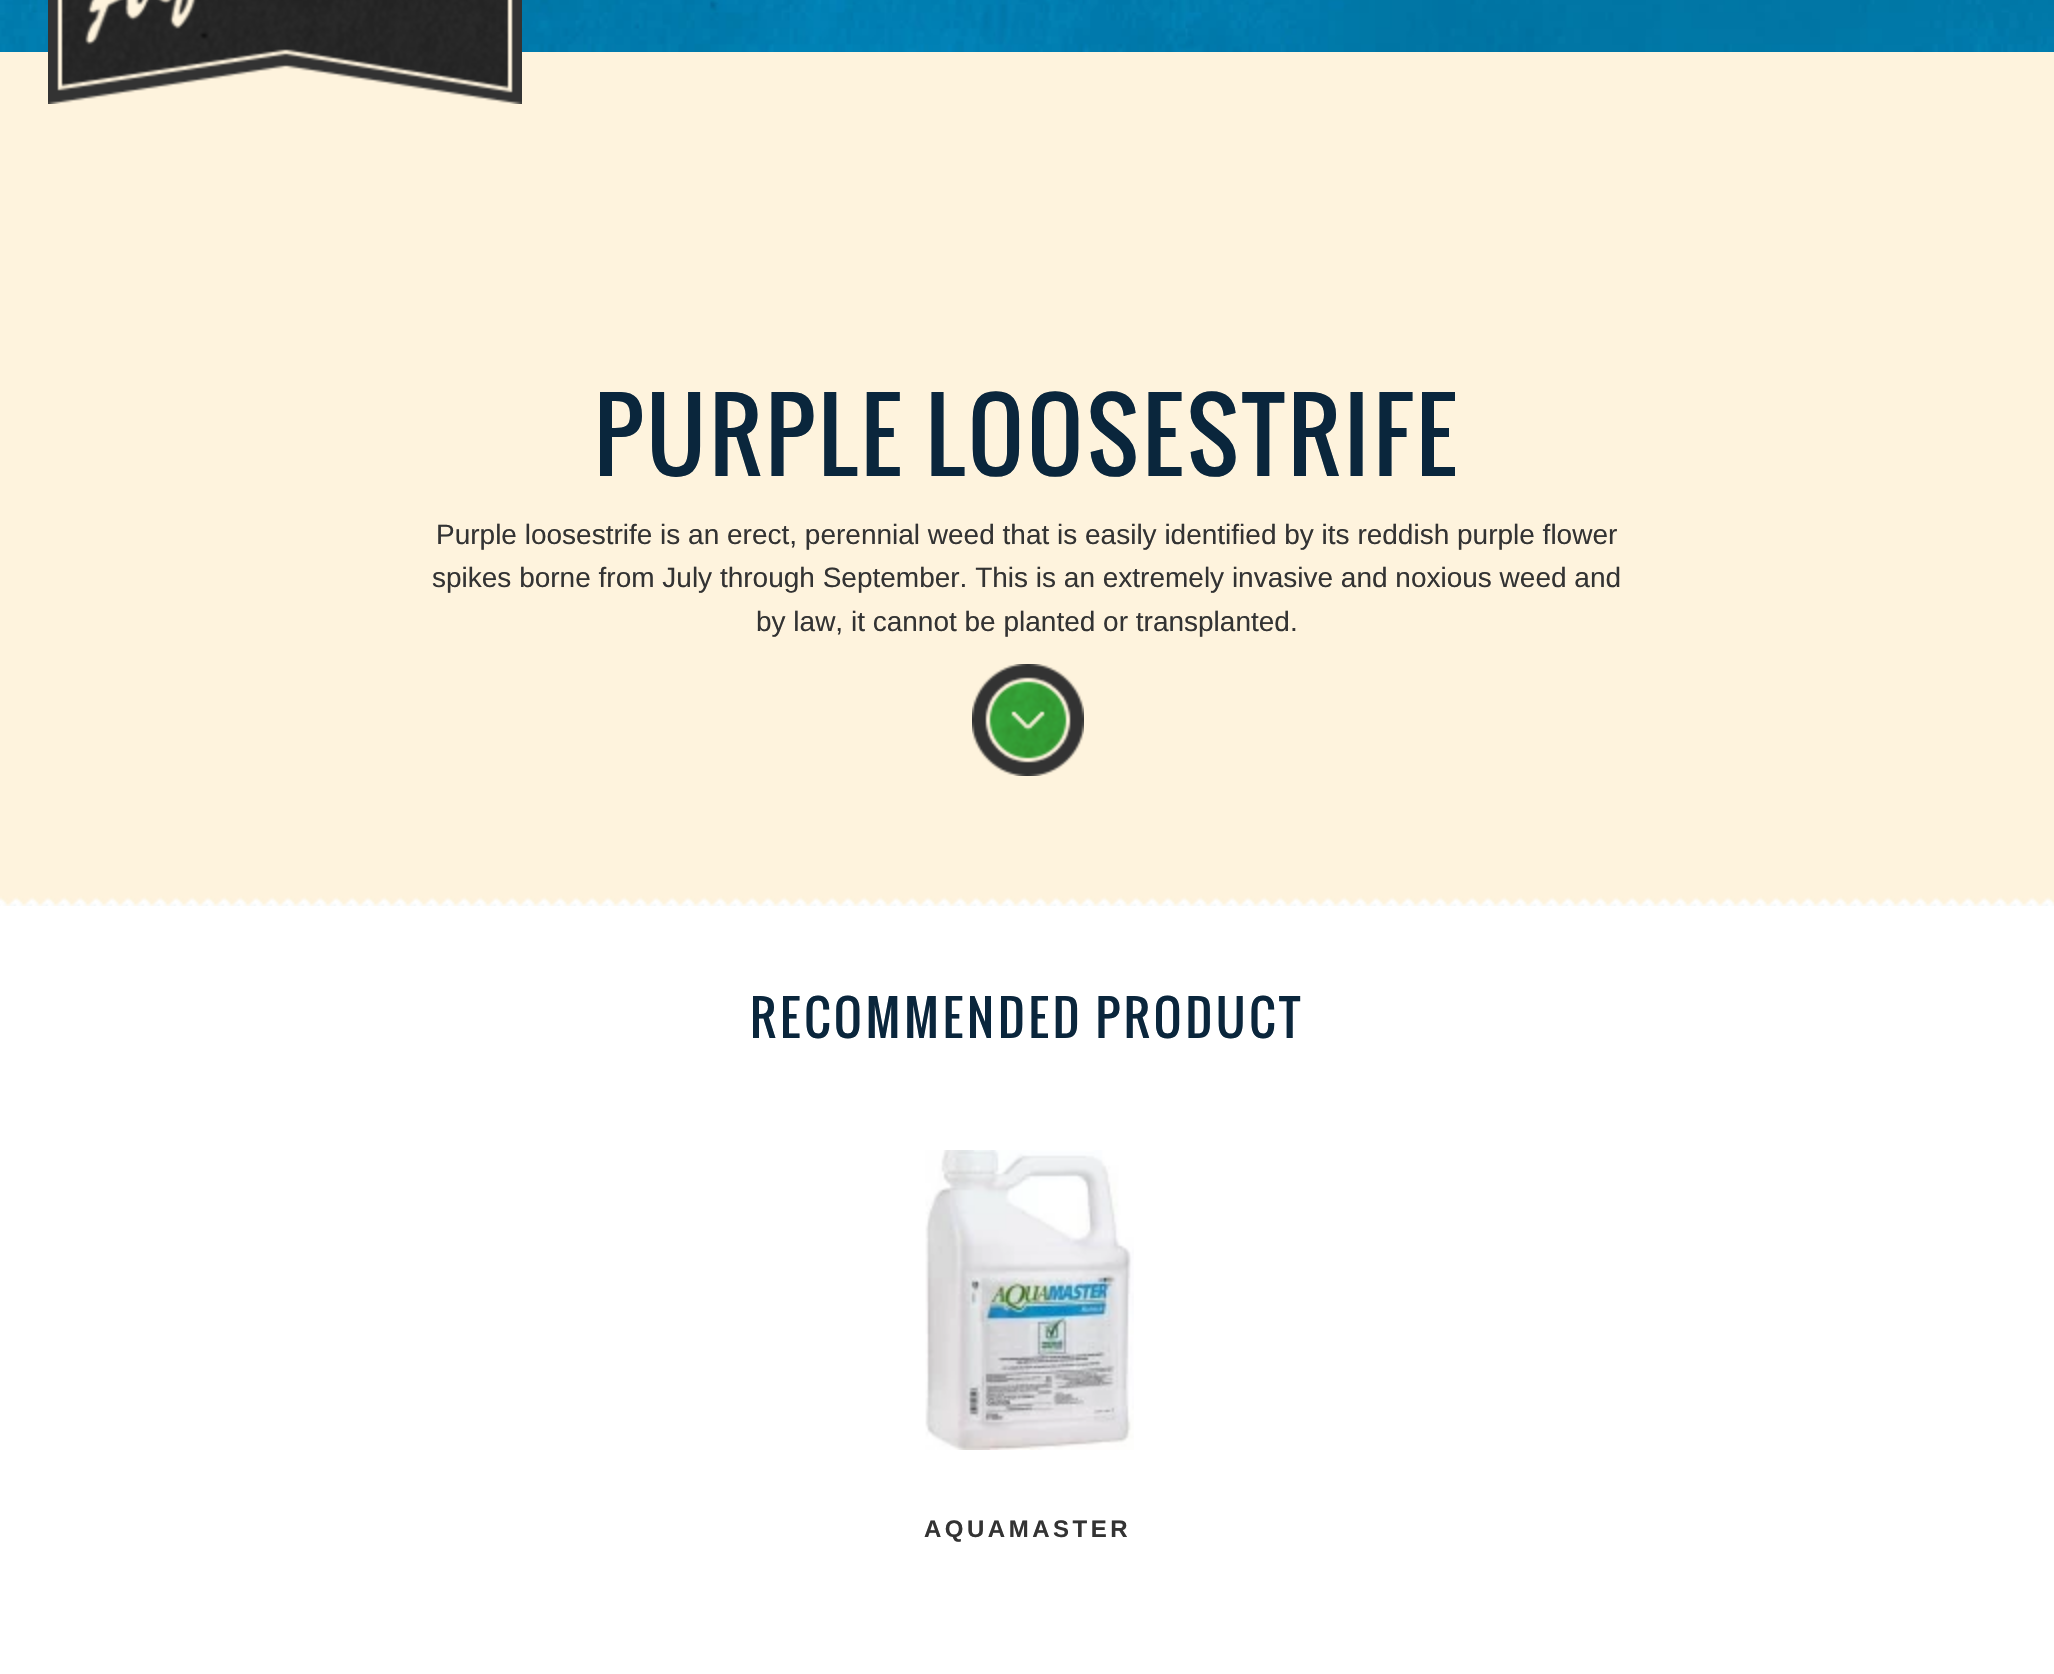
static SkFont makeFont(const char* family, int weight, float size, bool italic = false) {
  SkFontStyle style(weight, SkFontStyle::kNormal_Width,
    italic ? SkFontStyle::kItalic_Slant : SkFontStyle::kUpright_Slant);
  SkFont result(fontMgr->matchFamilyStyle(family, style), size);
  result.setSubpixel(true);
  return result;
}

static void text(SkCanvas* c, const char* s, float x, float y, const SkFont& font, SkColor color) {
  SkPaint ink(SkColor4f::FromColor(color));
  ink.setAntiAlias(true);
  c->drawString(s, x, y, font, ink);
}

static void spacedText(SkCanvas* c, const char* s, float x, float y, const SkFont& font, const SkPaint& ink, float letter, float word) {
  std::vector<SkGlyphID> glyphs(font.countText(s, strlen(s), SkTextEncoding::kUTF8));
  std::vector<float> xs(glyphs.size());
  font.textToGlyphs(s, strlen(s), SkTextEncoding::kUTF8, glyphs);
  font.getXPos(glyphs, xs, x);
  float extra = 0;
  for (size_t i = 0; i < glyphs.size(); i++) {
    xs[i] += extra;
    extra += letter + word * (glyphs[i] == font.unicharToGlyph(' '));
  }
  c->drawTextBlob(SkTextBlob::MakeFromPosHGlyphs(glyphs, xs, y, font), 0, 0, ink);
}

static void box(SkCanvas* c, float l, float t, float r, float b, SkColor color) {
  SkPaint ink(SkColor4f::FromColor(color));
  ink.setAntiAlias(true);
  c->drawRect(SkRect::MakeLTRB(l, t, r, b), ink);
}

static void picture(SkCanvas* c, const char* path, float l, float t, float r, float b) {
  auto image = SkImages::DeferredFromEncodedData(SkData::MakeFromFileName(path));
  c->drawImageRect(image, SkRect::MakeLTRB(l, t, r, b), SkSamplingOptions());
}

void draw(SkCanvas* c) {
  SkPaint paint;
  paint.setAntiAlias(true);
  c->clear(0xfffef3dd);
  picture(c, "img_01.png", 0, 0, 2054, 52);
  picture(c, "img_02.png", 48, 0, 522, 104);
  SkFont face1 = makeFont("Oswald", 400, 96);
  paint.setColor(0xff0a263c);
  spacedText(c, "PURPLE LOOSESTRIFE", 594, 476, face1, paint, 4, 0);
  SkFont face2 = makeFont("Liberation Sans", 400, 28);
  text(c, "Purple loosestrife is an erect, perennial weed that is easily identified by its reddish purple flower", 436, 544, face2, 0xff333333);
  text(c, "spikes borne from July through September. This is an extremely invasive and noxious weed and", 432, 587, face2, 0xff333333);
  text(c, "by law, it cannot be planted or transplanted.", 756, 631, face2, 0xff333333);
  picture(c, "img_03.png", 972, 664, 1084, 776);
  box(c, 0, 897, 2054, 1674, 0xffffffff);
  picture(c, "img_04.png", 0, 896, 2054, 906);
  SkFont face3 = makeFont("Oswald", 400, 48);
  spacedText(c, "RECOMMENDED PRODUCT", 750, 1038, face3, paint, 4, 0);
  picture(c, "img_05.png", 925, 1150, 1134, 1450);
  SkFont face4 = makeFont("Liberation Sans", 700, 24);
  paint.setColor(0xff333333);
  spacedText(c, "AQUAMASTER", 924, 1537, face4, paint, 3.5f, 0);
}
